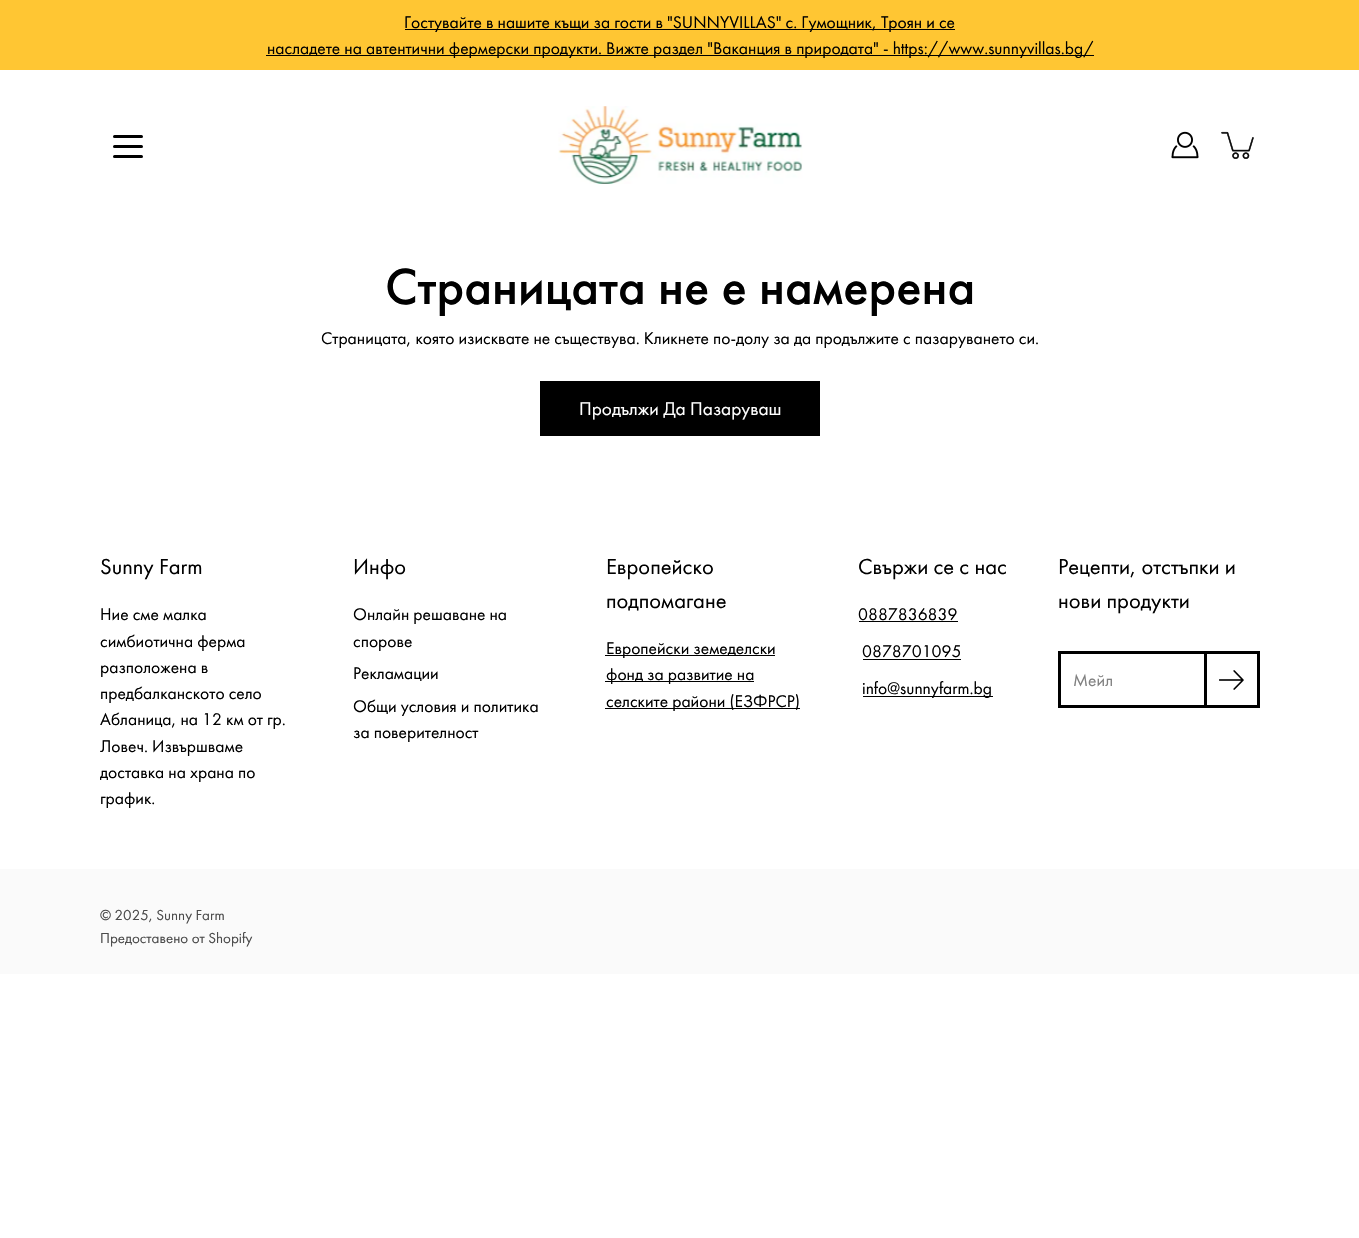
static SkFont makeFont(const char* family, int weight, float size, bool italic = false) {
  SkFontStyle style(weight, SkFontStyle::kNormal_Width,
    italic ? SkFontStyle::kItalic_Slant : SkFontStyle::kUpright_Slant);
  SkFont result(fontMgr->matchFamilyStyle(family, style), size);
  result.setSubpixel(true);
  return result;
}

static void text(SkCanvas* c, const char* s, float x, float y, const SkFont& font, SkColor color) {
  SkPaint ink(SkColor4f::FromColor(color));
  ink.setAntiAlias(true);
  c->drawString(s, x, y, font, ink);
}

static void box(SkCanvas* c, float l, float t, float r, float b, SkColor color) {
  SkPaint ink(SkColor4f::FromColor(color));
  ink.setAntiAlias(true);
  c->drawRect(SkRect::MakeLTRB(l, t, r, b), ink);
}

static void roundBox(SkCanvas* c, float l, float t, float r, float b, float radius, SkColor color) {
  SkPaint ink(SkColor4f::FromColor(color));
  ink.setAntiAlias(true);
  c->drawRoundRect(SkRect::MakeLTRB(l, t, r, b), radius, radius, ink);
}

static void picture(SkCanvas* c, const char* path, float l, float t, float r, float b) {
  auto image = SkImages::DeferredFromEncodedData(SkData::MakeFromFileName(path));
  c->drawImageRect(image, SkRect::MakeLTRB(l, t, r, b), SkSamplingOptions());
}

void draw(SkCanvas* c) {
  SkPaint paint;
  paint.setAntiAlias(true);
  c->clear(0xffffffff);
  box(c, 0, 0, 1359, 70, 0xffffc633);
  box(c, 405, 29, 955, 30, 0xff000000);
  SkFont face1 = makeFont("Futura PT", 400, 17.5f);
  text(c, "Гостувайте в нашите къщи за гости в \"SUNNYVILLAS\" с. Гумощник, Троян и се", 404, 28, face1, 0xff000000);
  box(c, 266, 55, 1094, 56, 0xff000000);
  text(c, "насладете на автентични фермерски продукти. Вижте раздел \"Ваканция в природата\" - https://www.sunnyvillas.bg/", 267, 54, face1, 0xff000000);
  picture(c, "img_01.png", 558, 106, 803, 184);
  roundBox(c, 113, 145, 143, 148, 1.5f, 0xff000000);
  roundBox(c, 113, 135, 143, 138, 1.5f, 0xff000000);
  roundBox(c, 113, 155, 143, 158, 1.5f, 0xff000000);
  picture(c, "img_02.png", 1171, 131, 1199, 159);
  picture(c, "img_03.png", 1221, 131, 1254, 159);
  SkFont face2 = makeFont("Futura PT", 500, 52.5f);
  text(c, "Страницата не е намерена", 385, 304, face2, 0xff000000);
  text(c, "Страницата, която изисквате не съществува. Кликнете по-долу за да продължите с пазаруването си.", 321, 344, face1, 0xff000000);
  box(c, 540, 381, 820, 436, 0xff000000);
  SkFont face3 = makeFont("Futura PT", 400, 19.25f);
  text(c, "Продължи Да Пазаруваш", 579, 415, face3, 0xffffffff);
  SkFont face4 = makeFont("Futura PT", 400, 22.5f);
  text(c, "Sunny Farm", 100, 574, face4, 0xff000000);
  text(c, "Ние сме малка", 100, 620, face1, 0xff000000);
  text(c, "симбиотична ферма", 100, 647, face1, 0xff000000);
  text(c, "разположена в", 100, 673, face1, 0xff000000);
  text(c, "предбалканското село", 100, 699, face1, 0xff000000);
  text(c, "Абланица, на 12 км от гр.", 100, 725, face1, 0xff000000);
  text(c, "Ловеч. Извършваме", 100, 752, face1, 0xff000000);
  text(c, "доставка на храна по", 100, 778, face1, 0xff000000);
  text(c, "график.", 100, 804, face1, 0xff000000);
  text(c, "Инфо", 353, 574, face4, 0xff000000);
  text(c, "Онлайн решаване на", 353, 620, face1, 0xff000000);
  text(c, "спорове", 353, 647, face1, 0xff000000);
  text(c, "Рекламации", 353, 679, face1, 0xff000000);
  text(c, "Общи условия и политика", 353, 712, face1, 0xff000000);
  text(c, "за поверителност", 353, 738, face1, 0xff000000);
  text(c, "Европейско", 606, 574, face4, 0xff000000);
  text(c, "подпомагане", 606, 608, face4, 0xff000000);
  box(c, 605, 655, 775, 656, 0xff000000);
  text(c, "Европейски земеделски", 606, 654, face1, 0xff000000);
  box(c, 605, 681, 754, 682, 0xff000000);
  text(c, "фонд за развитие на", 606, 680, face1, 0xff000000);
  box(c, 605, 708, 800, 709, 0xff000000);
  text(c, "селските райони (ЕЗФРСР)", 606, 707, face1, 0xff000000);
  text(c, "Свържи се с нас", 858, 574, face4, 0xff000000);
  text(c, "0887836839", 858, 620, face1, 0xff000000);
  box(c, 859, 621, 958, 622, 0xff000000);
  text(c, "0878701095", 862, 657, face1, 0xff000000);
  box(c, 863, 659, 961, 660, 0xff000000);
  box(c, 863, 696, 993, 697, 0xff000000);
  text(c, "info@sunnyfarm.bg", 862, 694, face1, 0xff000000);
  text(c, "Рецепти, отстъпки и", 1058, 574, face4, 0xff000000);
  text(c, "нови продукти", 1058, 608, face4, 0xff000000);
  paint.setStyle(SkPaint::kStroke_Style);
  paint.setStrokeWidth(3);
  paint.setColor(0xff000000);
  c->drawRect(SkRect::MakeLTRB(1059.5f, 652.5f, 1258.5f, 706.5f), paint);
  text(c, "Мейл", 1073, 686, face1, 0xff808080);
  c->drawRect(SkRect::MakeLTRB(1205.5f, 652.5f, 1258.5f, 706.5f), paint);
  picture(c, "img_04.png", 1219, 670, 1244, 690);
  box(c, 0, 869, 1359, 974, 0xfffafafa);
  SkFont face5 = makeFont("Futura PT", 400, 15);
  text(c, "© 2025, Sunny Farm", 100, 920, face5, 0xff4b4b4b);
  text(c, "Предоставено от Shopify", 100, 943, face5, 0xff4b4b4b);
}
